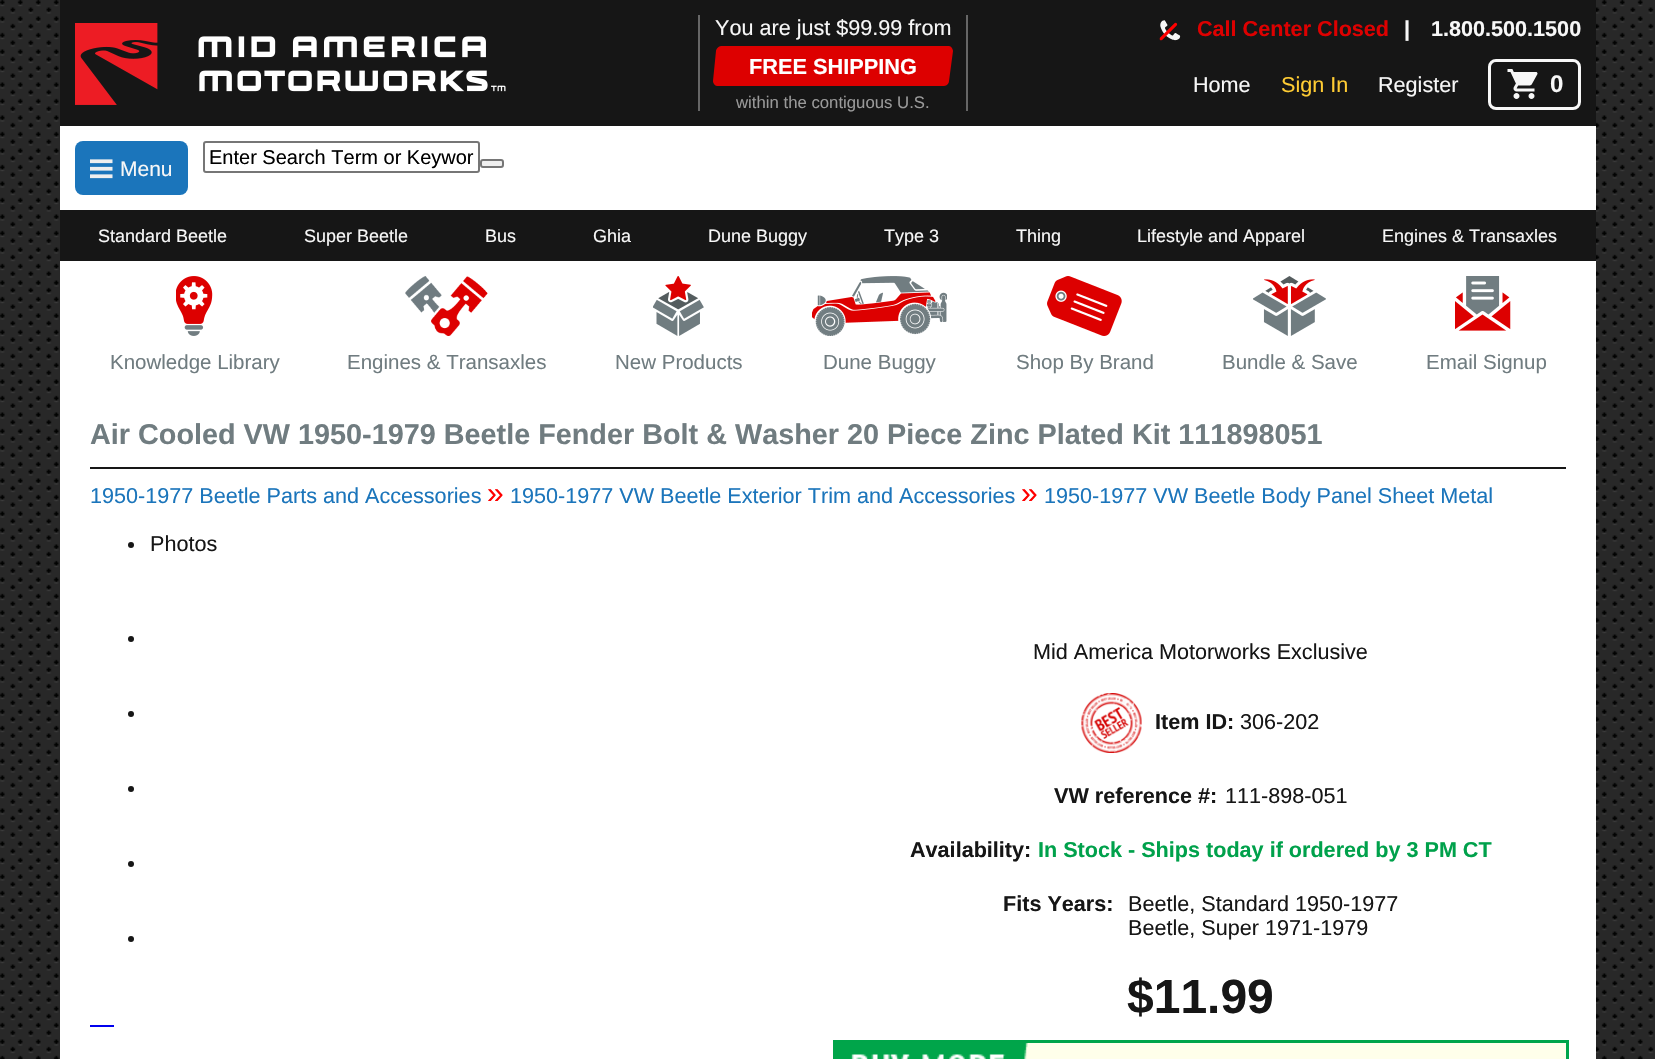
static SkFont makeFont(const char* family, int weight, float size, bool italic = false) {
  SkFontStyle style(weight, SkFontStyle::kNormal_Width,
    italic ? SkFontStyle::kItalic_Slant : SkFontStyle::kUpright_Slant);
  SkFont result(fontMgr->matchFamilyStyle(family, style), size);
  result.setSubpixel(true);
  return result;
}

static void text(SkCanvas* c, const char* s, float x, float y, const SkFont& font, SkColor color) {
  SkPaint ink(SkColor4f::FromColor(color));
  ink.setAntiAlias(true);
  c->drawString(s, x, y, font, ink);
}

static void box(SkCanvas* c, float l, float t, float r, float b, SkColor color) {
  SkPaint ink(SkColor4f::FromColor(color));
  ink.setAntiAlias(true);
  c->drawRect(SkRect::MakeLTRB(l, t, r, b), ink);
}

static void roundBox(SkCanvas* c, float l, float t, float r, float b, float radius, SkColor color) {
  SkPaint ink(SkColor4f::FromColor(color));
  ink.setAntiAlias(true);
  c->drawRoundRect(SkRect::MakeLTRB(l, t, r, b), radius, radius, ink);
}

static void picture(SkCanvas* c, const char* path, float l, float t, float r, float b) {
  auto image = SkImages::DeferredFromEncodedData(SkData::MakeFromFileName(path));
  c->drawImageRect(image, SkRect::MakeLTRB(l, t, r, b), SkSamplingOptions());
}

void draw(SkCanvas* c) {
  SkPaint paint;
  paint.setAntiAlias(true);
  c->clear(0xffffffff);
  picture(c, "img_01.png", 0, 0, 1655, 1059);
  box(c, 60, 126, 1596, 1059, 0xffffffff);
  box(c, 60, 0, 1596, 126, 0xff161616);
  picture(c, "img_02.png", 75, 23, 506, 105);
  box(c, 966, 15, 968, 111, 0xff666666);
  box(c, 698, 15, 700, 111, 0xff666666);
  SkFont face1 = makeFont("Liberation Sans", 400, 21.6f);
  text(c, "You are just $99.99 from", 715, 35, face1, 0xfff7f7f7);
  paint.setColor(0xffdd0000);
  c->drawPath(SkPathBuilder().moveTo(721, 46).lineTo(949, 46).cubicTo(951, 46, 953, 49, 953, 51).lineTo(949, 81).cubicTo(949, 83, 947, 86, 944, 86).lineTo(717, 86).cubicTo(715, 86, 713, 83, 713, 81).lineTo(716, 51).cubicTo(716, 49, 719, 46, 721, 46).close().detach(), paint);
  SkFont face2 = makeFont("Liberation Sans", 700, 21.75f);
  text(c, "FREE SHIPPING", 749, 74, face2, 0xffffffff);
  SkFont face3 = makeFont("Liberation Sans", 400, 16.75f);
  text(c, "within the contiguous U.S.", 736, 108, face3, 0xff999999);
  picture(c, "img_03.png", 1159, 20, 1181, 41);
  SkFont face4 = makeFont("Liberation Sans", 700, 21.6f);
  text(c, "Call Center Closed", 1197, 36, face4, 0xffdd0000);
  text(c, "|", 1404, 36, face4, 0xfff7f7f7);
  text(c, "1.800.500.1500", 1431, 36, face4, 0xfff7f7f7);
  text(c, "Home", 1193, 92, face1, 0xfff7f7f7);
  text(c, "Sign In", 1281, 92, face1, 0xffffcc33);
  text(c, "Register", 1378, 92, face1, 0xfff7f7f7);
  paint.setStyle(SkPaint::kStroke_Style);
  paint.setStrokeWidth(3);
  paint.setColor(0xfff7f7f7);
  c->drawRoundRect(SkRect::MakeLTRB(1489.5f, 60.5f, 1579.5f, 108.5f), 6.5f, 6.5f, paint);
  picture(c, "img_04.png", 1507, 69, 1538, 99);
  SkFont face5 = makeFont("Liberation Sans", 700, 24);
  text(c, "0", 1550, 92, face5, 0xfff7f7f7);
  roundBox(c, 75, 141, 188, 195, 8, 0xff1b75bb);
  picture(c, "img_05.png", 90, 159, 113, 179);
  SkFont face6 = makeFont("Liberation Sans", 400, 21);
  text(c, "Menu", 120, 176, face6, 0xfff7f7f7);
  paint.setStrokeWidth(2);
  paint.setColor(0xff767676);
  c->drawRoundRect(SkRect::MakeLTRB(204, 142, 479, 172), 2, 2, paint);
  SkFont face7 = makeFont("Liberation Sans", 400, 20);
  text(c, "Enter Search Term or Keywor", 209, 164, face7, 0xff000000);
  paint.setStyle(SkPaint::kFill_Style);
  paint.setColor(0xffefefef);
  c->drawRoundRect(SkRect::MakeLTRB(481, 160, 503, 167), 2, 2, paint);
  paint.setStyle(SkPaint::kStroke_Style);
  paint.setColor(0xff767676);
  c->drawRoundRect(SkRect::MakeLTRB(481, 160, 503, 167), 2, 2, paint);
  box(c, 60, 210, 1596, 261, 0xff161616);
  SkFont face8 = makeFont("Liberation Sans", 400, 18);
  text(c, "Standard Beetle", 98, 242, face8, 0xfff7f7f7);
  text(c, "Super Beetle", 304, 242, face8, 0xfff7f7f7);
  text(c, "Bus", 485, 242, face8, 0xfff7f7f7);
  text(c, "Ghia", 593, 242, face8, 0xfff7f7f7);
  text(c, "Dune Buggy", 708, 242, face8, 0xfff7f7f7);
  text(c, "Type 3", 884, 242, face8, 0xfff7f7f7);
  text(c, "Thing", 1016, 242, face8, 0xfff7f7f7);
  text(c, "Lifestyle and Apparel", 1137, 242, face8, 0xfff7f7f7);
  text(c, "Engines & Transaxles", 1382, 242, face8, 0xfff7f7f7);
  picture(c, "img_06.png", 176, 276, 213, 336);
  SkFont face9 = makeFont("Liberation Sans", 400, 20.5f);
  text(c, "Knowledge Library", 110, 369, face9, 0xff707c80);
  picture(c, "img_07.png", 405, 276, 488, 336);
  text(c, "Engines & Transaxles", 347, 369, face9, 0xff707c80);
  picture(c, "img_08.png", 653, 276, 704, 336);
  text(c, "New Products", 615, 369, face9, 0xff707c80);
  picture(c, "img_09.png", 812, 276, 947, 336);
  text(c, "Dune Buggy", 823, 369, face9, 0xff707c80);
  picture(c, "img_10.png", 1047, 276, 1122, 336);
  text(c, "Shop By Brand", 1016, 369, face9, 0xff707c80);
  picture(c, "img_11.png", 1253, 276, 1326, 336);
  text(c, "Bundle & Save", 1222, 369, face9, 0xff707c80);
  picture(c, "img_12.png", 1455, 276, 1511, 331);
  text(c, "Email Signup", 1426, 369, face9, 0xff707c80);
  box(c, 90, 467, 1566, 469, 0xff161616);
  SkFont face10 = makeFont("Liberation Sans", 700, 28.8f);
  text(c, "Air Cooled VW 1950-1979 Beetle Fender Bolt & Washer 20 Piece Zinc Plated Kit 111898051", 90, 444, face10, 0xff707c80);
  text(c, "1950-1977 Beetle Parts and Accessories", 90, 503, face1, 0xff1b75bb);
  SkFont face11 = makeFont("Liberation Sans", 400, 30);
  text(c, "»", 487, 503, face11, 0xffff0000);
  text(c, "1950-1977 VW Beetle Exterior Trim and Accessories", 510, 503, face1, 0xff1b75bb);
  text(c, "»", 1021, 503, face11, 0xffff0000);
  text(c, "1950-1977 VW Beetle Body Panel Sheet Metal", 1044, 503, face1, 0xff1b75bb);
  paint.setStyle(SkPaint::kFill_Style);
  paint.setColor(0xff161616);
  c->drawCircle(131, 545, 3, paint);
  text(c, "Photos", 150, 551, face1, 0xff161616);
  c->drawCircle(131, 639, 3, paint);
  c->drawCircle(131, 714, 3, paint);
  c->drawCircle(131, 789, 3, paint);
  c->drawCircle(131, 864, 3, paint);
  c->drawCircle(131, 939, 3, paint);
  box(c, 90, 1025, 114, 1027, 0xff0000ee);
  text(c, "Mid America Motorworks Exclusive", 1033, 659, face1, 0xff161616);
  picture(c, "img_13.png", 1081, 693, 1142, 753);
  text(c, "Item ID:", 1155, 729, face4, 0xff161616);
  text(c, "306-202", 1240, 729, face1, 0xff161616);
  text(c, "VW reference #:", 1054, 803, face4, 0xff161616);
  text(c, "111-898-051", 1225, 803, face1, 0xff161616);
  text(c, "Availability:", 910, 857, face4, 0xff161616);
  text(c, "In Stock - Ships today if ordered by 3 PM CT", 1038, 857, face4, 0xff00a14b);
  text(c, "Fits Years:", 1003, 911, face4, 0xff161616);
  text(c, "Beetle, Standard 1950-1977", 1128, 911, face1, 0xff161616);
  text(c, "Beetle, Super 1971-1979", 1128, 935, face1, 0xff161616);
  SkFont face12 = makeFont("Liberation Sans", 700, 48);
  text(c, "$11.99", 1127, 1013, face12, 0xff161616);
  box(c, 1024, 1043, 1566, 1059, 0xffffffea);
  paint.setStyle(SkPaint::kStroke_Style);
  paint.setStrokeWidth(3);
  paint.setColor(0xff00a54a);
  c->drawRect(SkRect::MakeLTRB(834.5f, 1041.5f, 1567.5f, 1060.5f), paint);
  picture(c, "img_14.png", 836, 1043, 1028, 1059);
}
